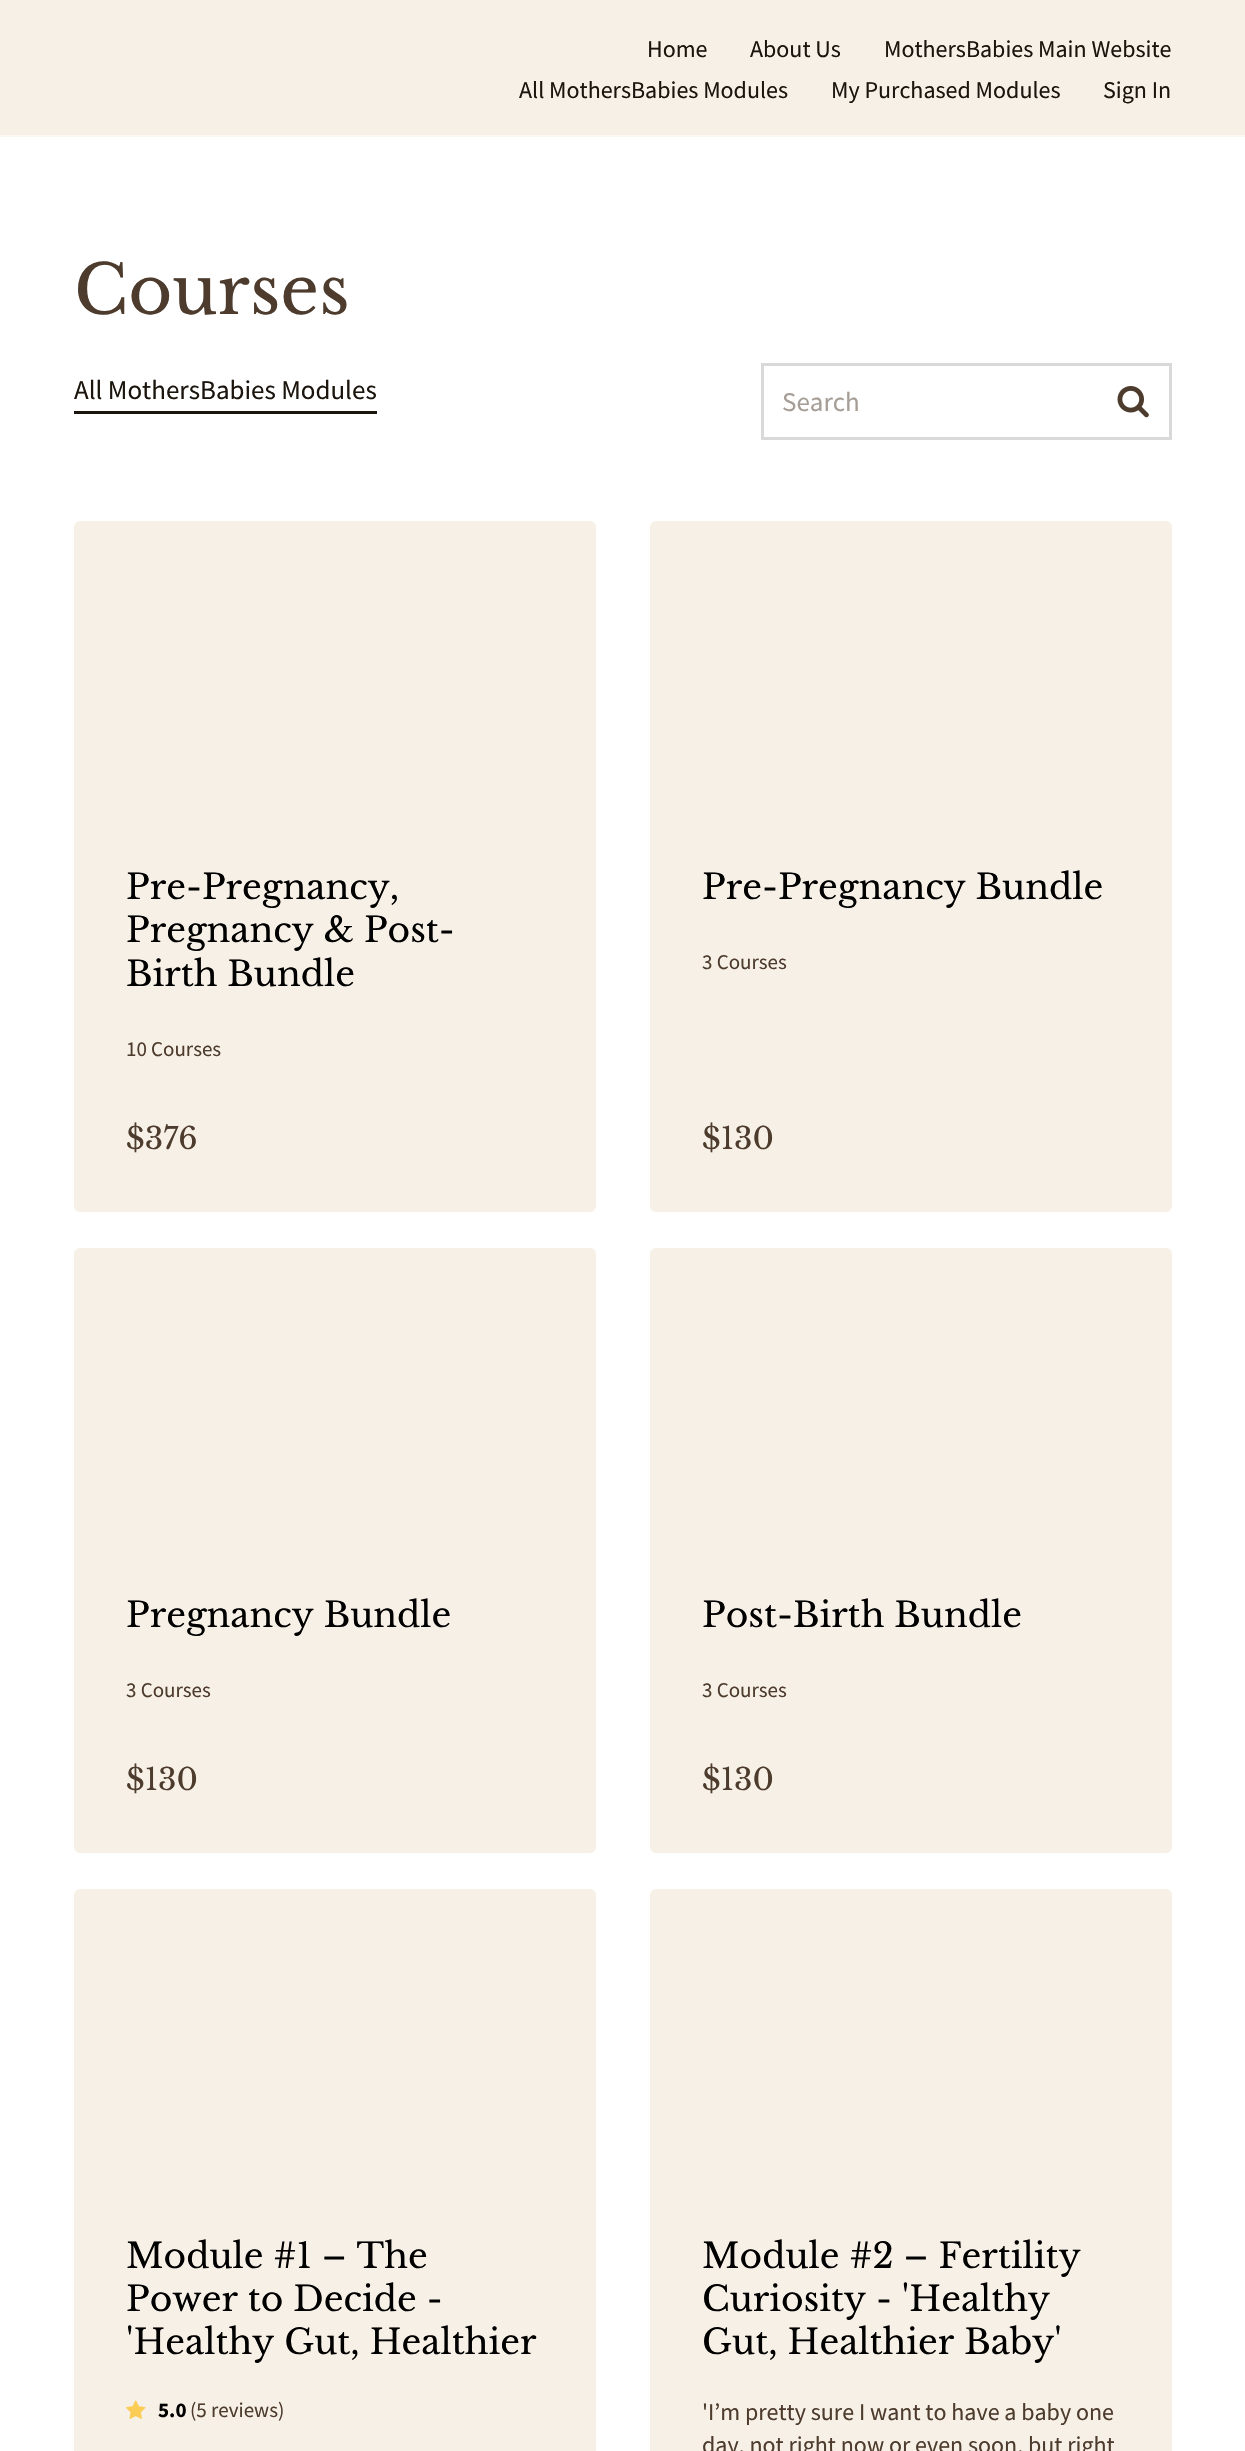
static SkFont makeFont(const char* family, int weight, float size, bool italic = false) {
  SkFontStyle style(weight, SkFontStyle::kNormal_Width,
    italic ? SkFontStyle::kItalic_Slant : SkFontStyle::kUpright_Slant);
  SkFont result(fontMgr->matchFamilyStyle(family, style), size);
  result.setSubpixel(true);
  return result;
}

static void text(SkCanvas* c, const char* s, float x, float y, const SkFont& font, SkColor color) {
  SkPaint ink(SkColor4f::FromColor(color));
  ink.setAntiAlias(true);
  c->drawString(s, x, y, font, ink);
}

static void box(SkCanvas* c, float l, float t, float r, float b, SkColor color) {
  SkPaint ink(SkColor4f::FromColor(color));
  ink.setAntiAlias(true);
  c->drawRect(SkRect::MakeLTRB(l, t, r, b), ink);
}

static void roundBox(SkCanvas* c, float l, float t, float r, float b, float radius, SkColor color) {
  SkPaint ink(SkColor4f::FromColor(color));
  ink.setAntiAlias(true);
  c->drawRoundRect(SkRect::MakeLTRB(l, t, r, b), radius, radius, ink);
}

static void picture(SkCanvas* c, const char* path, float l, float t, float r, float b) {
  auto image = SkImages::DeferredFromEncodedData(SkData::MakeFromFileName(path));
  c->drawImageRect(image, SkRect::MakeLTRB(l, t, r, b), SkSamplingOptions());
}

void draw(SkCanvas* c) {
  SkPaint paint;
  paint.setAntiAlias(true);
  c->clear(0xffffffff);
  box(c, 0, 0, 1245, 135, 0xfff7f0e6);
  box(c, 0, 135, 1245, 137, 0xfffbf8f3);
  SkFont face1 = makeFont("Source Sans Pro", 400, 24);
  text(c, "Home", 647, 57, face1, 0xff1b150e);
  text(c, "About Us", 750, 57, face1, 0xff1b150e);
  text(c, "MothersBabies Main Website", 884, 57, face1, 0xff1b150e);
  text(c, "All MothersBabies Modules", 519, 98, face1, 0xff1b150e);
  text(c, "My Purchased Modules", 831, 98, face1, 0xff1b150e);
  text(c, "Sign In", 1103, 98, face1, 0xff1b150e);
  SkFont face2 = makeFont("Libre Baskerville", 400, 67.5f);
  text(c, "Courses", 74, 314, face2, 0xff4d3c2d);
  SkFont face3 = makeFont("Source Sans Pro", 400, 27);
  text(c, "All MothersBabies Modules", 74, 399, face3, 0xff1b150e);
  box(c, 74, 411, 377, 414, 0xff1b150e);
  paint.setStyle(SkPaint::kStroke_Style);
  paint.setStrokeWidth(3);
  paint.setColor(0xffd9d9d9);
  c->drawRect(SkRect::MakeLTRB(762.5f, 364.5f, 1170.5f, 438.5f), paint);
  text(c, "Search", 782, 411, face3, 0xffa69e96);
  picture(c, "img_01.png", 1117, 386, 1149, 418);
  roundBox(c, 74, 521, 596, 1212, 6, 0xfff7f0e6);
  SkFont face4 = makeFont("Libre Baskerville", 400, 34.5f);
  text(c, "Pre-Pregnancy,", 126, 899, face4, 0xff000000);
  text(c, "Pregnancy & Post-", 126, 942, face4, 0xff000000);
  text(c, "Birth Bundle", 126, 986, face4, 0xff000000);
  SkFont face5 = makeFont("Source Sans Pro", 400, 21);
  text(c, "10 Courses", 126, 1056, face5, 0xff4d3c2d);
  SkFont face6 = makeFont("Libre Baskerville", 400, 30);
  text(c, "$376", 126, 1149, face6, 0xff4d3c2d);
  roundBox(c, 650, 521, 1172, 1212, 6, 0xfff7f0e6);
  text(c, "Pre-Pregnancy Bundle", 702, 899, face4, 0xff000000);
  text(c, "3 Courses", 702, 969, face5, 0xff4d3c2d);
  text(c, "$130", 702, 1149, face6, 0xff4d3c2d);
  roundBox(c, 74, 1248, 596, 1853, 6, 0xfff7f0e6);
  text(c, "Pregnancy Bundle", 126, 1627, face4, 0xff000000);
  text(c, "3 Courses", 126, 1697, face5, 0xff4d3c2d);
  text(c, "$130", 126, 1790, face6, 0xff4d3c2d);
  roundBox(c, 650, 1248, 1172, 1853, 6, 0xfff7f0e6);
  text(c, "Post-Birth Bundle", 702, 1627, face4, 0xff000000);
  text(c, "3 Courses", 702, 1697, face5, 0xff4d3c2d);
  text(c, "$130", 702, 1790, face6, 0xff4d3c2d);
  roundBox(c, 74, 1889, 596, 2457, 6, 0xfff7f0e6);
  text(c, "Module #1 – The", 126, 2268, face4, 0xff000000);
  text(c, "Power to Decide -", 126, 2311, face4, 0xff000000);
  text(c, "'Healthy Gut, Healthier", 126, 2354, face4, 0xff000000);
  picture(c, "img_02.png", 126, 2400, 146, 2419);
  SkFont face7 = makeFont("Source Sans Pro", 700, 21);
  text(c, "5.0", 158, 2417, face7, 0xff000000);
  text(c, "(5 reviews)", 190, 2417, face5, 0xff4d3c2d);
  roundBox(c, 650, 1889, 1172, 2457, 6, 0xfff7f0e6);
  text(c, "Module #2 – Fertility", 702, 2268, face4, 0xff000000);
  text(c, "Curiosity - 'Healthy", 702, 2311, face4, 0xff000000);
  text(c, "Gut, Healthier Baby'", 702, 2354, face4, 0xff000000);
  text(c, "'I’m pretty sure I want to have a baby one", 702, 2420, face1, 0xff4d3c2d);
  text(c, "day, not right now or even soon, but right", 702, 2453, face1, 0xff4d3c2d);
}
